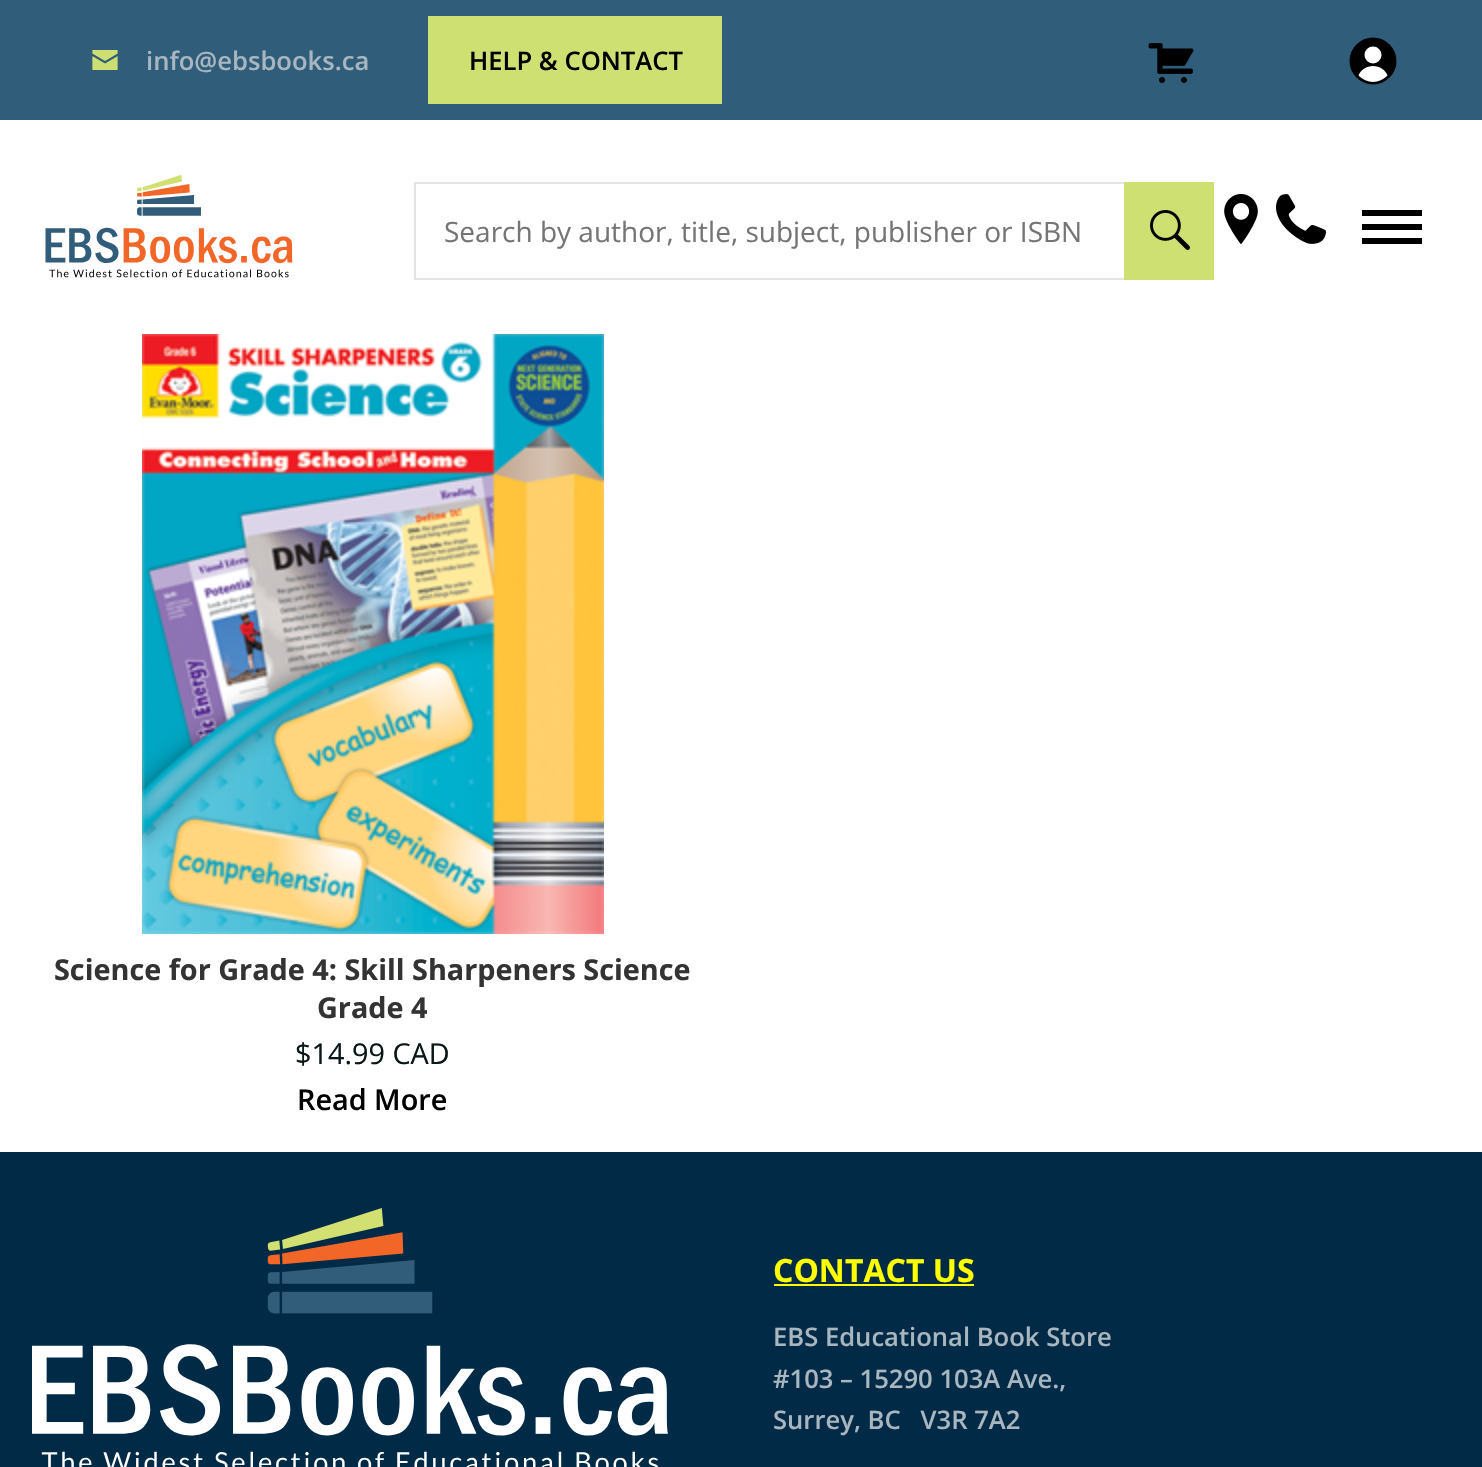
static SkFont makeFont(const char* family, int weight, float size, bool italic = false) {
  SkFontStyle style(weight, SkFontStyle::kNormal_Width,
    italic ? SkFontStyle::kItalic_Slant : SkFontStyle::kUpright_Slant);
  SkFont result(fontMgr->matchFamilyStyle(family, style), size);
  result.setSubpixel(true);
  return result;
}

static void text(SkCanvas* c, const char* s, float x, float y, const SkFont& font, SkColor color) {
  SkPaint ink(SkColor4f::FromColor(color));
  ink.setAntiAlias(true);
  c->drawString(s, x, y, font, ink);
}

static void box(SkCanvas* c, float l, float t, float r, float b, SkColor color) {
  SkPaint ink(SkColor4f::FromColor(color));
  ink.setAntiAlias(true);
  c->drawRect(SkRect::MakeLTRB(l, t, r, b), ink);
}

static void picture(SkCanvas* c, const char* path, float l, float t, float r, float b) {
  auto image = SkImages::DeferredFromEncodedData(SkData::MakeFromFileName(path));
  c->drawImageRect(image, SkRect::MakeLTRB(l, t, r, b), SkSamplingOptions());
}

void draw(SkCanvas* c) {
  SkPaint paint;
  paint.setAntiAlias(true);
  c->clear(0xffffffff);
  box(c, 0, 0, 1482, 120, 0xff305d7a);
  picture(c, "img_01.png", 92, 50, 118, 70);
  SkFont face1 = makeFont("Open Sans", 600, 25.6f);
  text(c, "info@ebsbooks.ca", 146, 70, face1, 0xffa7b6bf);
  box(c, 428, 16, 722, 104, 0xffcde071);
  text(c, "HELP & CONTACT", 469, 70, face1, 0xff000000);
  picture(c, "img_02.png", 1148, 43, 1194, 83);
  paint.setColor(0xff000000);
  c->drawCircle(1373, 61, 23.5f, paint);
  paint.setColor(0xffffffff);
  c->drawCircle(1373, 55, 8.5f, paint);
  c->drawPath(SkPathBuilder().moveTo(1373, 66).cubicTo(1379.5f, 66, 1385.5f, 70, 1387.5f, 75.5f).cubicTo(1379.5f, 84, 1366.5f, 84, 1358.5f, 75.5f).cubicTo(1360.5f, 70, 1366.5f, 66, 1373, 66).close().detach(), paint);
  picture(c, "img_03.png", 45, 174, 293, 278);
  paint.setStyle(SkPaint::kStroke_Style);
  paint.setStrokeWidth(2);
  paint.setColor(0xffe4e4e4);
  c->drawRect(SkRect::MakeLTRB(415, 183, 1159, 279), paint);
  SkFont face2 = makeFont("Open Sans", 400, 28);
  text(c, "Search by author, title, subject, publisher or ISBN", 444, 242, face2, 0xff757575);
  box(c, 1124, 182, 1214, 280, 0xffcde071);
  picture(c, "img_04.png", 1150, 210, 1190, 250);
  picture(c, "img_05.png", 1224, 194, 1258, 244);
  picture(c, "img_06.png", 1276, 194, 1326, 244);
  box(c, 1362, 224, 1422, 230, 0xff000000);
  box(c, 1362, 210, 1422, 216, 0xff000000);
  box(c, 1362, 238, 1422, 244, 0xff000000);
  picture(c, "img_07.png", 142, 334, 604, 934);
  SkFont face3 = makeFont("Open Sans", 700, 28.8f);
  text(c, "Science for Grade 4: Skill Sharpeners Science", 54, 980, face3, 0xff333333);
  text(c, "Grade 4", 317, 1018, face3, 0xff333333);
  SkFont face4 = makeFont("Open Sans", 400, 28.8f);
  text(c, "$14.99 CAD", 295, 1064, face4, 0xff0a1718);
  SkFont face5 = makeFont("Open Sans", 600, 28.8f);
  text(c, "Read More", 297, 1110, face5, 0xff000000);
  box(c, 0, 1152, 1482, 1467, 0xff002a45);
  picture(c, "img_08.png", 32, 1208, 668, 1467);
  SkFont face6 = makeFont("Open Sans", 700, 32);
  text(c, "CONTACT US", 773, 1282, face6, 0xffffff00);
  box(c, 774, 1284, 974, 1286, 0xffffff00);
  text(c, "EBS Educational Book Store", 773, 1346, face1, 0xffa7b6bf);
  text(c, "#103 – 15290 103A Ave.,", 773, 1388, face1, 0xffa7b6bf);
  text(c, "Surrey, BC   V3R 7A2", 773, 1429, face1, 0xffa7b6bf);
}
